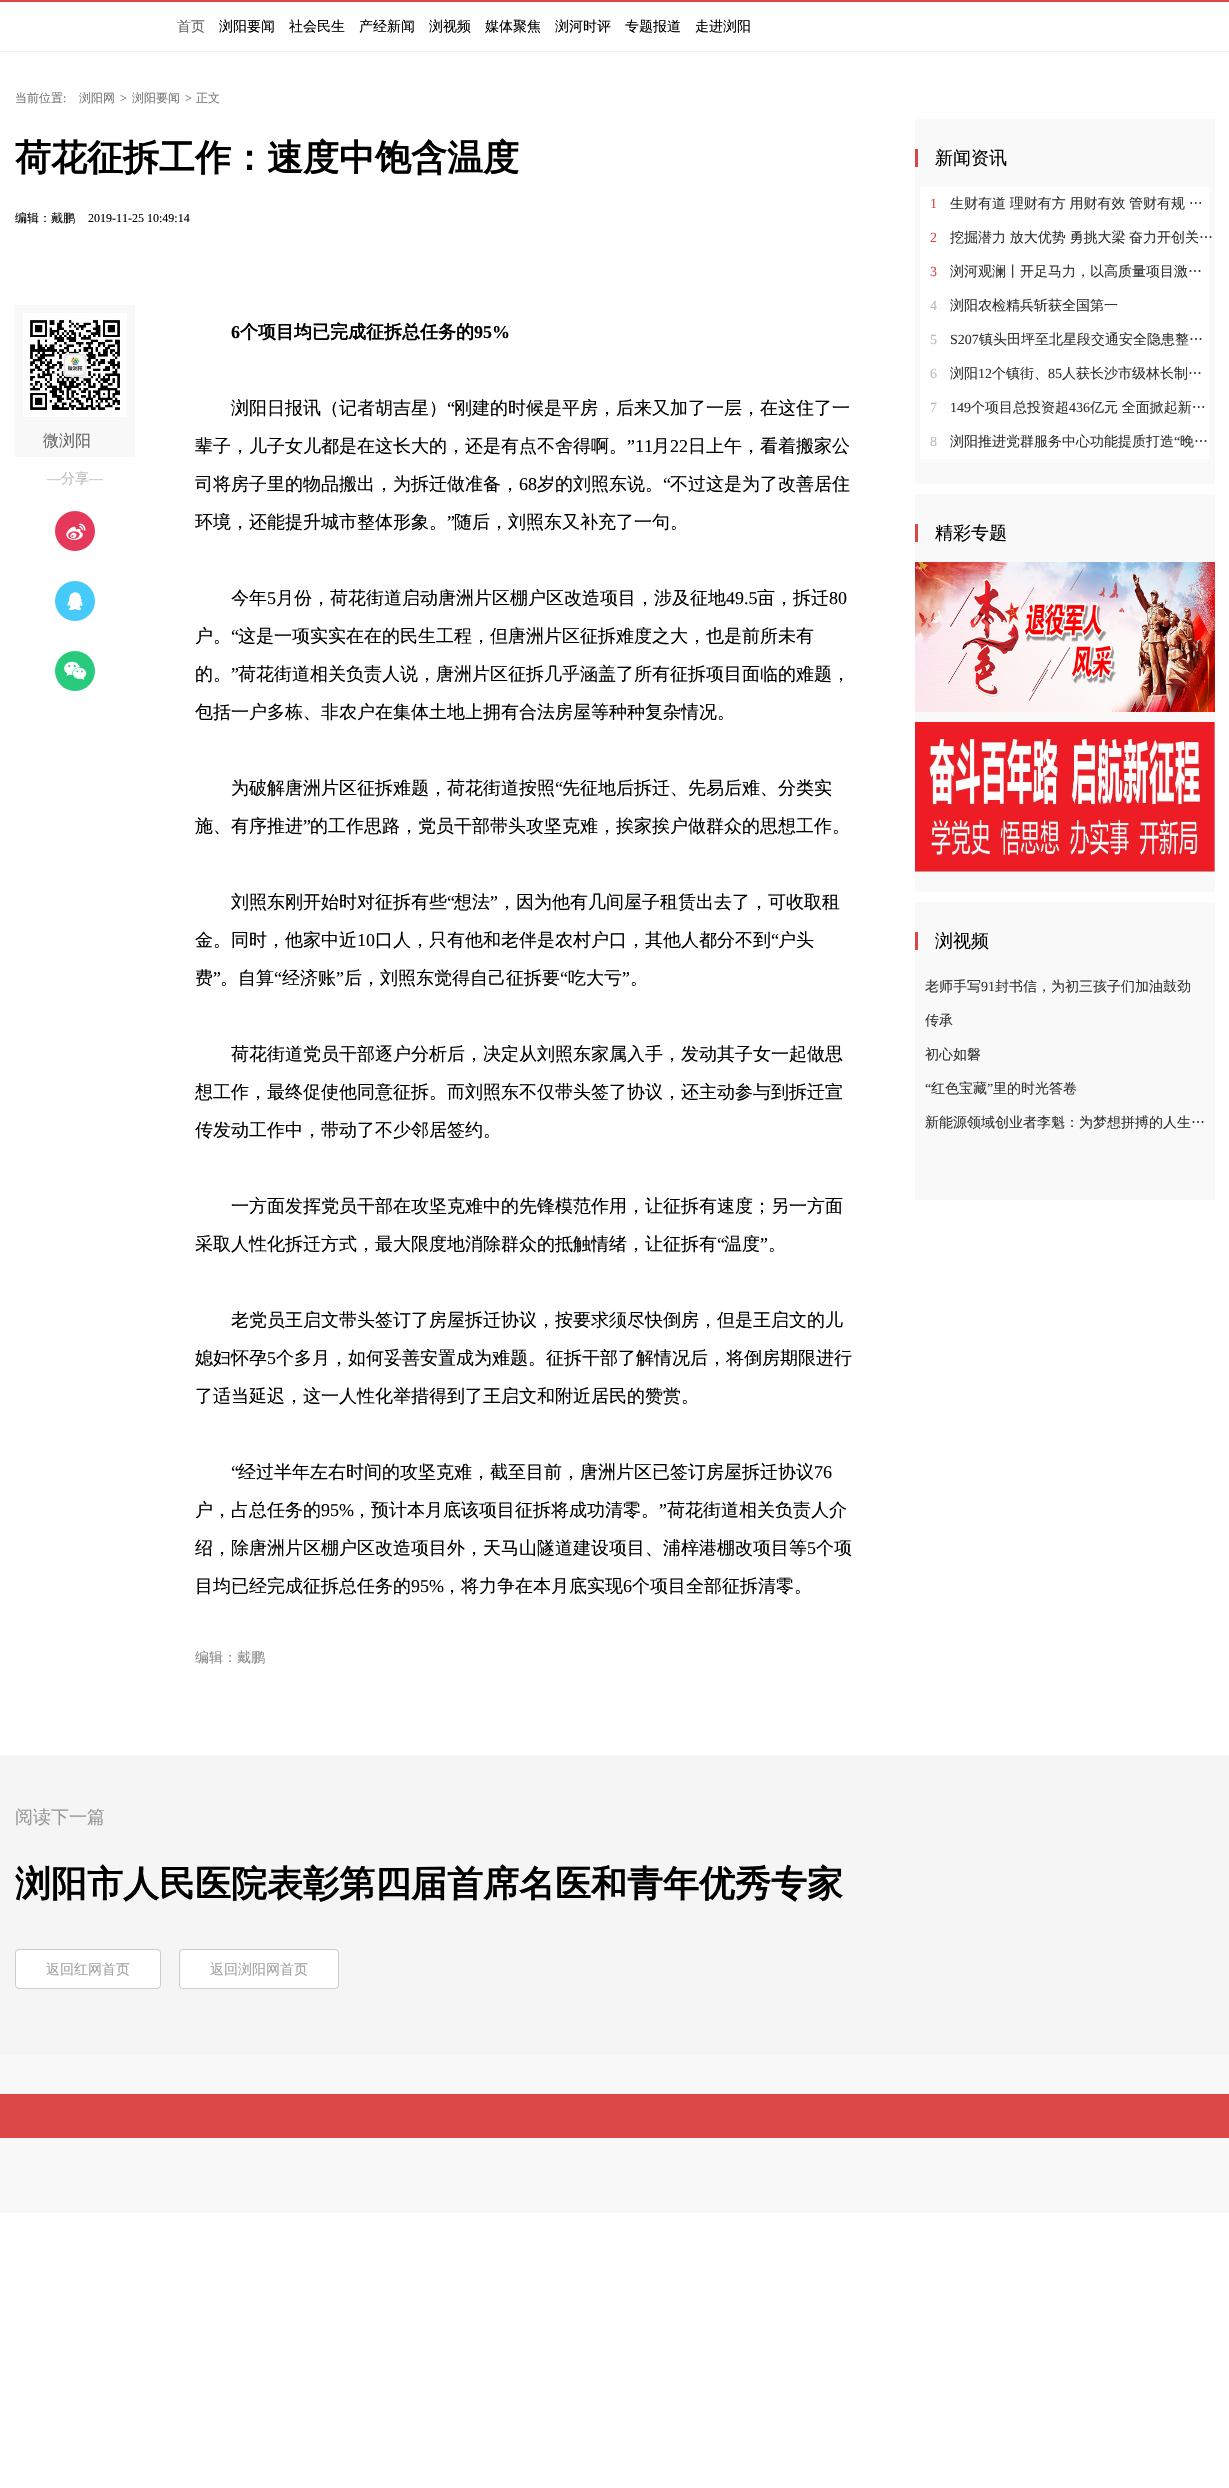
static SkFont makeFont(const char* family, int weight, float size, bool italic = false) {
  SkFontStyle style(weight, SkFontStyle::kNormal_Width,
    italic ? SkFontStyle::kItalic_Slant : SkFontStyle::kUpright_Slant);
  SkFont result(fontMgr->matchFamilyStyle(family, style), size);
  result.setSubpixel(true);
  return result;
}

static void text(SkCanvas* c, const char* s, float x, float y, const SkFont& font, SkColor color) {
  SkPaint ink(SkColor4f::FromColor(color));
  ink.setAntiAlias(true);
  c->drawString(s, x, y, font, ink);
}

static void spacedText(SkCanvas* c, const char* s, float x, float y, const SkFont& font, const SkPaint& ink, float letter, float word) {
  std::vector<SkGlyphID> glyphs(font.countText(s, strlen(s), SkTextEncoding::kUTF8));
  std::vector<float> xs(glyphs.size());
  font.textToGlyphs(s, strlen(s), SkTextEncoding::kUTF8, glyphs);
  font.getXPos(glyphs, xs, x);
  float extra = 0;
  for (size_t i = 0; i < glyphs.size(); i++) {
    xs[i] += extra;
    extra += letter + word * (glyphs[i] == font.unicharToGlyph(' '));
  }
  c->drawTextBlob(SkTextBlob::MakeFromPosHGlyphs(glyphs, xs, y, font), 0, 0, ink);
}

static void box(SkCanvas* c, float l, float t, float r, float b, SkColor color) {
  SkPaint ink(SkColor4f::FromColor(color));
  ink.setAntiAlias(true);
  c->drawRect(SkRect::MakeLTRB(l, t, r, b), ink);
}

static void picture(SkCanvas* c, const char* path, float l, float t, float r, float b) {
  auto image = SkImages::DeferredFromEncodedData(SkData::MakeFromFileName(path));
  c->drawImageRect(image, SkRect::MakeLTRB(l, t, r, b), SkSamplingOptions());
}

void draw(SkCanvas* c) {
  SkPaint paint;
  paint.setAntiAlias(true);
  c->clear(0xffffffff);
  box(c, 0, 0, 1229, 2, 0xffda4747);
  box(c, 0, 51, 1229, 52, 0xfff1f1f1);
  SkFont face1 = makeFont("WenQuanYi Zen Hei", 500, 14);
  text(c, "首页", 177, 31, face1, 0xff666666);
  text(c, "浏阳要闻", 219, 31, face1, 0xff000000);
  text(c, "社会民生", 289, 31, face1, 0xff000000);
  text(c, "产经新闻", 359, 31, face1, 0xff000000);
  text(c, "浏视频", 429, 31, face1, 0xff000000);
  text(c, "媒体聚焦", 485, 31, face1, 0xff000000);
  text(c, "浏河时评", 555, 31, face1, 0xff000000);
  text(c, "专题报道", 625, 31, face1, 0xff000000);
  text(c, "走进浏阳", 695, 31, face1, 0xff000000);
  SkFont face2 = makeFont("WenQuanYi Zen Hei", 500, 12);
  text(c, "当前位置", 15, 102, face2, 0xff777777);
  SkFont face3 = makeFont("Liberation Serif", 400, 12);
  text(c, ":", 63, 102, face3, 0xff777777);
  text(c, "浏阳网", 79, 102, face2, 0xff777777);
  text(c, ">", 120, 102, face3, 0xff777777);
  text(c, "浏阳要闻", 132, 102, face2, 0xff777777);
  text(c, ">", 185, 102, face3, 0xff777777);
  text(c, "正文", 196, 102, face2, 0xff777777);
  SkFont face4 = makeFont("WenQuanYi Zen Hei", 700, 36);
  text(c, "荷花征拆工作：速度中饱含温度", 15, 170, face4, 0xff000000);
  c->save();
  c->clipRect(SkRect::MakeLTRB(15, 109, 1215, 1705));
  text(c, "编辑：戴鹏", 15, 222, face2, 0xff000000);
  c->restore();
  text(c, "2019-11-25 10:49:14", 88, 222, face3, 0xff000000);
  box(c, 15, 305, 135, 457, 0xfff8f8f8);
  picture(c, "img_01.png", 23, 313, 127, 417);
  SkFont face5 = makeFont("WenQuanYi Zen Hei", 500, 16);
  text(c, "微浏阳", 43, 446, face5, 0xff666666);
  SkFont face6 = makeFont("Liberation Serif", 400, 14);
  text(c, "—", 47, 483, face6, 0xffbbbbbb);
  text(c, "分享", 61, 483, face1, 0xffbbbbbb);
  text(c, "—", 89, 483, face6, 0xffbbbbbb);
  picture(c, "img_02.png", 55, 511, 95, 551);
  picture(c, "img_03.png", 55, 581, 95, 621);
  picture(c, "img_04.png", 55, 651, 95, 691);
  SkFont face7 = makeFont("Liberation Serif", 700, 18);
  text(c, "6", 231, 338, face7, 0xff000000);
  SkFont face8 = makeFont("WenQuanYi Zen Hei", 700, 18);
  text(c, "个项目均已完成征拆总任务的", 240, 338, face8, 0xff000000);
  text(c, "95%", 474, 338, face7, 0xff000000);
  SkFont face9 = makeFont("WenQuanYi Zen Hei", 500, 18);
  text(c, "浏阳日报讯（记者胡吉星）", 231, 414, face9, 0xff000000);
  SkFont face10 = makeFont("Liberation Serif", 400, 18);
  text(c, "“", 447, 414, face10, 0xff000000);
  text(c, "刚建的时候是平房，后来又加了一层，在这住了一", 454, 414, face9, 0xff000000);
  text(c, "辈子，儿子女儿都是在这长大的，还是有点不舍得啊。", 195, 452, face9, 0xff000000);
  text(c, "”11", 627, 452, face10, 0xff000000);
  text(c, "月", 652, 452, face9, 0xff000000);
  text(c, "22", 670, 452, face10, 0xff000000);
  text(c, "日上午，看着搬家公", 688, 452, face9, 0xff000000);
  text(c, "司将房子里的物品搬出，为拆迁做准备，", 195, 490, face9, 0xff000000);
  text(c, "68", 519, 490, face10, 0xff000000);
  text(c, "岁的刘照东说。", 537, 490, face9, 0xff000000);
  text(c, "“", 663, 490, face10, 0xff000000);
  text(c, "不过这是为了改善居住", 670, 490, face9, 0xff000000);
  text(c, "环境，还能提升城市整体形象。", 195, 528, face9, 0xff000000);
  text(c, "”", 447, 528, face10, 0xff000000);
  text(c, "随后，刘照东又补充了一句。", 454, 528, face9, 0xff000000);
  text(c, "今年", 231, 604, face9, 0xff000000);
  text(c, "5", 267, 604, face10, 0xff000000);
  text(c, "月份，荷花街道启动唐洲片区棚户区改造项目，涉及征地", 276, 604, face9, 0xff000000);
  text(c, "49.5", 726, 604, face10, 0xff000000);
  text(c, "亩，拆迁", 757, 604, face9, 0xff000000);
  text(c, "80", 829, 604, face10, 0xff000000);
  text(c, "户。", 195, 642, face9, 0xff000000);
  text(c, "“", 231, 642, face10, 0xff000000);
  text(c, "这是一项实实在在的民生工程，但唐洲片区征拆难度之大，也是前所未有", 238, 642, face9, 0xff000000);
  text(c, "的。", 195, 680, face9, 0xff000000);
  text(c, "”", 231, 680, face10, 0xff000000);
  text(c, "荷花街道相关负责人说，唐洲片区征拆几乎涵盖了所有征拆项目面临的难题，", 238, 680, face9, 0xff000000);
  text(c, "包括一户多栋、非农户在集体土地上拥有合法房屋等种种复杂情况。", 195, 718, face9, 0xff000000);
  text(c, "为破解唐洲片区征拆难题，荷花街道按照", 231, 794, face9, 0xff000000);
  text(c, "“", 555, 794, face10, 0xff000000);
  text(c, "先征地后拆迁、先易后难、分类实", 562, 794, face9, 0xff000000);
  text(c, "施、有序推进", 195, 832, face9, 0xff000000);
  text(c, "”", 303, 832, face10, 0xff000000);
  text(c, "的工作思路，党员干部带头攻坚克难，挨家挨户做群众的思想工作。", 310, 832, face9, 0xff000000);
  text(c, "刘照东刚开始时对征拆有些", 231, 908, face9, 0xff000000);
  text(c, "“", 447, 908, face10, 0xff000000);
  text(c, "想法", 454, 908, face9, 0xff000000);
  text(c, "”", 490, 908, face10, 0xff000000);
  text(c, "，因为他有几间屋子租赁出去了，可收取租", 498, 908, face9, 0xff000000);
  text(c, "金。同时，他家中近", 195, 946, face9, 0xff000000);
  text(c, "10", 357, 946, face10, 0xff000000);
  text(c, "口人，只有他和老伴是农村户口，其他人都分不到", 375, 946, face9, 0xff000000);
  text(c, "“", 771, 946, face10, 0xff000000);
  text(c, "户头", 778, 946, face9, 0xff000000);
  text(c, "费", 195, 984, face9, 0xff000000);
  text(c, "”", 213, 984, face10, 0xff000000);
  text(c, "。自算", 220, 984, face9, 0xff000000);
  text(c, "“", 274, 984, face10, 0xff000000);
  text(c, "经济账", 282, 984, face9, 0xff000000);
  text(c, "”", 336, 984, face10, 0xff000000);
  text(c, "后，刘照东觉得自己征拆要", 344, 984, face9, 0xff000000);
  text(c, "“", 560, 984, face10, 0xff000000);
  text(c, "吃大亏", 568, 984, face9, 0xff000000);
  text(c, "”", 622, 984, face10, 0xff000000);
  text(c, "。", 630, 984, face9, 0xff000000);
  text(c, "荷花街道党员干部逐户分析后，决定从刘照东家属入手，发动其子女一起做思", 231, 1060, face9, 0xff000000);
  text(c, "想工作，最终促使他同意征拆。而刘照东不仅带头签了协议，还主动参与到拆迁宣", 195, 1098, face9, 0xff000000);
  text(c, "传发动工作中，带动了不少邻居签约。", 195, 1136, face9, 0xff000000);
  text(c, "一方面发挥党员干部在攻坚克难中的先锋模范作用，让征拆有速度；另一方面", 231, 1212, face9, 0xff000000);
  text(c, "采取人性化拆迁方式，最大限度地消除群众的抵触情绪，让征拆有", 195, 1250, face9, 0xff000000);
  text(c, "“", 717, 1250, face10, 0xff000000);
  text(c, "温度", 724, 1250, face9, 0xff000000);
  text(c, "”", 760, 1250, face10, 0xff000000);
  text(c, "。", 768, 1250, face9, 0xff000000);
  text(c, "老党员王启文带头签订了房屋拆迁协议，按要求须尽快倒房，但是王启文的儿", 231, 1326, face9, 0xff000000);
  text(c, "媳妇怀孕", 195, 1364, face9, 0xff000000);
  text(c, "5", 267, 1364, face10, 0xff000000);
  text(c, "个多月，如何妥善安置成为难题。征拆干部了解情况后，将倒房期限进行", 276, 1364, face9, 0xff000000);
  text(c, "了适当延迟，这一人性化举措得到了王启文和附近居民的赞赏。", 195, 1402, face9, 0xff000000);
  text(c, "“", 231, 1478, face10, 0xff000000);
  text(c, "经过半年左右时间的攻坚克难，截至目前，唐洲片区已签订房屋拆迁协议", 238, 1478, face9, 0xff000000);
  text(c, "76", 814, 1478, face10, 0xff000000);
  text(c, "户，占总任务的", 195, 1516, face9, 0xff000000);
  text(c, "95%", 321, 1516, face10, 0xff000000);
  text(c, "，预计本月底该项目征拆将成功清零。", 353, 1516, face9, 0xff000000);
  text(c, "”", 659, 1516, face10, 0xff000000);
  text(c, "荷花街道相关负责人介", 667, 1516, face9, 0xff000000);
  text(c, "绍，除唐洲片区棚户区改造项目外，天马山隧道建设项目、浦梓港棚改项目等", 195, 1554, face9, 0xff000000);
  text(c, "5", 807, 1554, face10, 0xff000000);
  text(c, "个项", 816, 1554, face9, 0xff000000);
  text(c, "目均已经完成征拆总任务的", 195, 1592, face9, 0xff000000);
  text(c, "95%", 411, 1592, face10, 0xff000000);
  text(c, "，将力争在本月底实现", 443, 1592, face9, 0xff000000);
  text(c, "6", 623, 1592, face10, 0xff000000);
  text(c, "个项目全部征拆清零。", 632, 1592, face9, 0xff000000);
  text(c, "编辑：戴鹏", 195, 1662, face1, 0xff888888);
  box(c, 915, 119, 1215, 484, 0xfff9f9f9);
  box(c, 915, 149, 918, 167, 0xffda4747);
  text(c, "新闻资讯", 935, 164, face9, 0xff000000);
  box(c, 920, 187, 1210, 459, 0xffffffff);
  text(c, "1", 930, 208, face6, 0xffda4747);
  paint.setColor(0xff333333);
  spacedText(c, "生财有道 理财有方 用财有效 管财有规 …", 950, 208, face1, paint, 0, -0.5f);
  text(c, "2", 930, 242, face6, 0xffda4747);
  spacedText(c, "挖掘潜力 放大优势 勇挑大梁 奋力开创关…", 950, 242, face1, paint, 0, -0.5f);
  text(c, "3", 930, 276, face6, 0xffda4747);
  text(c, "浏河观澜丨开足马力，以高质量项目激…", 950, 276, face1, 0xff333333);
  text(c, "4", 930, 310, face6, 0xffbbbbbb);
  text(c, "浏阳农检精兵斩获全国第一", 950, 310, face1, 0xff333333);
  text(c, "5", 930, 344, face6, 0xffbbbbbb);
  text(c, "S207", 950, 344, face6, 0xff333333);
  text(c, "镇头田坪至北星段交通安全隐患整…", 979, 344, face1, 0xff333333);
  text(c, "6", 930, 378, face6, 0xffbbbbbb);
  text(c, "浏阳", 950, 378, face1, 0xff333333);
  text(c, "12", 978, 378, face6, 0xff333333);
  text(c, "个镇街、", 992, 378, face1, 0xff333333);
  text(c, "85", 1048, 378, face6, 0xff333333);
  text(c, "人获长沙市级林长制…", 1062, 378, face1, 0xff333333);
  text(c, "7", 930, 412, face6, 0xffbbbbbb);
  text(c, "149", 950, 412, face6, 0xff333333);
  text(c, "个项目总投资超", 971, 412, face1, 0xff333333);
  text(c, "436", 1069, 412, face6, 0xff333333);
  spacedText(c, "亿元 全面掀起新…", 1090, 412, face1, paint, 0, -0.5f);
  text(c, "8", 930, 446, face6, 0xffbbbbbb);
  text(c, "浏阳推进党群服务中心功能提质打造", 950, 446, face1, 0xff333333);
  text(c, "“", 1174, 446, face6, 0xff333333);
  text(c, "晚…", 1180, 446, face1, 0xff333333);
  box(c, 915, 494, 1215, 892, 0xfff9f9f9);
  box(c, 915, 524, 918, 542, 0xffda4747);
  text(c, "精彩专题", 935, 539, face9, 0xff000000);
  picture(c, "img_05.png", 915, 562, 1215, 712);
  picture(c, "img_06.png", 915, 722, 1215, 872);
  box(c, 915, 902, 1215, 1200, 0xfff9f9f9);
  box(c, 915, 932, 918, 950, 0xffda4747);
  text(c, "浏视频", 935, 947, face9, 0xff000000);
  text(c, "老师手写", 925, 991, face1, 0xff333333);
  text(c, "91", 981, 991, face6, 0xff333333);
  text(c, "封书信，为初三孩子们加油鼓劲", 995, 991, face1, 0xff333333);
  text(c, "传承", 925, 1025, face1, 0xff333333);
  text(c, "初心如磐", 925, 1059, face1, 0xff333333);
  text(c, "“", 925, 1093, face6, 0xff333333);
  text(c, "红色宝藏", 931, 1093, face1, 0xff333333);
  text(c, "”", 987, 1093, face6, 0xff333333);
  text(c, "里的时光答卷", 993, 1093, face1, 0xff333333);
  text(c, "新能源领域创业者李魁：为梦想拼搏的人生…", 925, 1127, face1, 0xff333333);
  box(c, 0, 1755, 1229, 2055, 0xfff5f5f5);
  text(c, "阅读下一篇", 15, 1823, face9, 0xff999999);
  text(c, "浏阳市人民医院表彰第四届首席名医和青年优秀专家", 15, 1896, face4, 0xff000000);
  paint.setColor(0xffffffff);
  c->drawRoundRect(SkRect::MakeLTRB(15.5f, 1949.5f, 160.5f, 1988.5f), 3.5f, 3.5f, paint);
  paint.setStyle(SkPaint::kStroke_Style);
  paint.setStrokeWidth(1);
  paint.setColor(0xffcccccc);
  c->drawRoundRect(SkRect::MakeLTRB(15.5f, 1949.5f, 160.5f, 1988.5f), 3.5f, 3.5f, paint);
  text(c, "返回红网首页", 46, 1974, face1, 0xffa3a3a3);
  paint.setStyle(SkPaint::kFill_Style);
  paint.setColor(0xffffffff);
  c->drawRoundRect(SkRect::MakeLTRB(179.5f, 1949.5f, 338.5f, 1988.5f), 3.5f, 3.5f, paint);
  paint.setStyle(SkPaint::kStroke_Style);
  paint.setColor(0xffcccccc);
  c->drawRoundRect(SkRect::MakeLTRB(179.5f, 1949.5f, 338.5f, 1988.5f), 3.5f, 3.5f, paint);
  text(c, "返回浏阳网首页", 210, 1974, face1, 0xffa3a3a3);
  box(c, 0, 2055, 1229, 2213, 0xfff8f8f8);
  box(c, 0, 2094, 1229, 2138, 0xffda4747);
}
